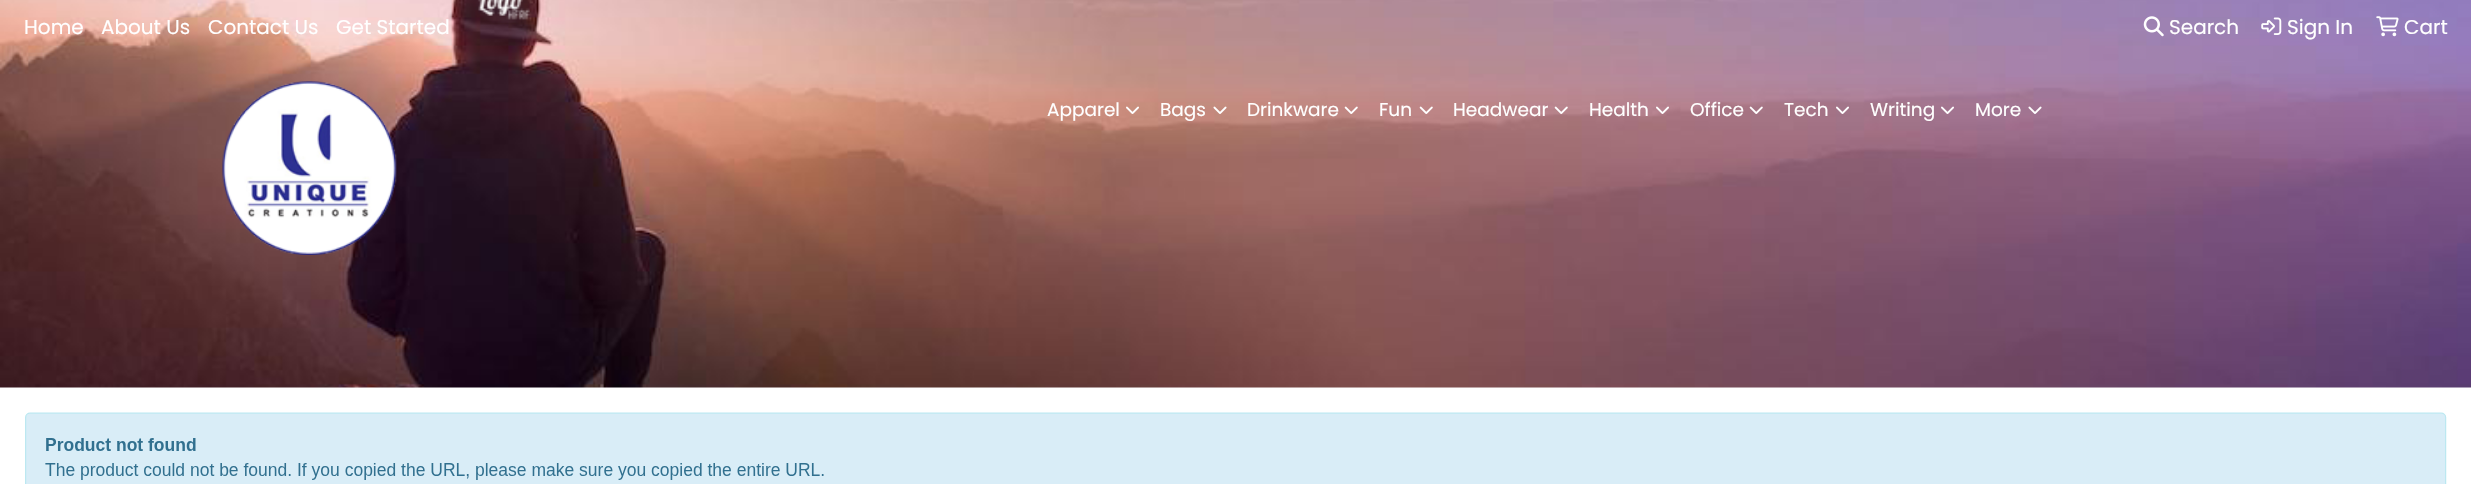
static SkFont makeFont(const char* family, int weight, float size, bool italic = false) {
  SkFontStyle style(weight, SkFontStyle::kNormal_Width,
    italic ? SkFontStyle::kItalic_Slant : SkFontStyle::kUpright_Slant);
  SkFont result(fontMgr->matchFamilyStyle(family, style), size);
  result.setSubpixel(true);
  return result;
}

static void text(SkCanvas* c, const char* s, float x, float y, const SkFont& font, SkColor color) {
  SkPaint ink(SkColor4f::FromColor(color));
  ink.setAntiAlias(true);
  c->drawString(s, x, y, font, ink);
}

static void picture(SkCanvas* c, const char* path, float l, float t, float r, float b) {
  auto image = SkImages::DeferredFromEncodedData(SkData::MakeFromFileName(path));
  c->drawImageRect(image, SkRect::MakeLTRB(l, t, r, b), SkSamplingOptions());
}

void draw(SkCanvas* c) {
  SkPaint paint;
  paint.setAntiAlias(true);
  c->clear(0xffffffff);
  picture(c, "img_01.png", 0, 0, 2471, 388);
  SkFont face1 = makeFont("Poppins", 400, 20);
  text(c, "Home", 24, 34, face1, 0xffffffff);
  text(c, "About Us", 101, 34, face1, 0xffffffff);
  text(c, "Contact Us", 208, 34, face1, 0xffffffff);
  text(c, "Get Started", 336, 34, face1, 0xffffffff);
  picture(c, "img_02.png", 2143, 16, 2164, 37);
  text(c, "Search", 2169, 34, face1, 0xffffffff);
  picture(c, "img_03.png", 2261, 17, 2282, 35);
  text(c, "Sign In", 2287, 34, face1, 0xffffffff);
  picture(c, "img_04.png", 2376, 16, 2399, 37);
  text(c, "Cart", 2404, 34, face1, 0xffffffff);
  picture(c, "img_05.png", 222, 81, 397, 255);
  SkFont face2 = makeFont("Poppins", 400, 18.5f);
  text(c, "Apparel", 1047, 116, face2, 0xffffffff);
  picture(c, "img_06.png", 1126, 106, 1139, 114);
  text(c, "Bags", 1160, 116, face2, 0xffffffff);
  picture(c, "img_07.png", 1213, 106, 1227, 114);
  text(c, "Drinkware", 1247, 116, face2, 0xffffffff);
  picture(c, "img_08.png", 1344, 106, 1358, 114);
  text(c, "Fun", 1379, 116, face2, 0xffffffff);
  picture(c, "img_09.png", 1419, 106, 1433, 114);
  text(c, "Headwear", 1453, 116, face2, 0xffffffff);
  picture(c, "img_10.png", 1554, 106, 1568, 114);
  text(c, "Health", 1589, 116, face2, 0xffffffff);
  picture(c, "img_11.png", 1656, 106, 1669, 114);
  text(c, "Office", 1690, 116, face2, 0xffffffff);
  picture(c, "img_12.png", 1749, 106, 1763, 114);
  text(c, "Tech", 1784, 116, face2, 0xffffffff);
  picture(c, "img_13.png", 1836, 106, 1849, 114);
  text(c, "Writing", 1870, 116, face2, 0xffffffff);
  picture(c, "img_14.png", 1941, 106, 1954, 114);
  text(c, "More", 1975, 116, face2, 0xffffffff);
  picture(c, "img_15.png", 2028, 106, 2042, 114);
  picture(c, "img_16.png", 25, 412, 2447, 484);
}
